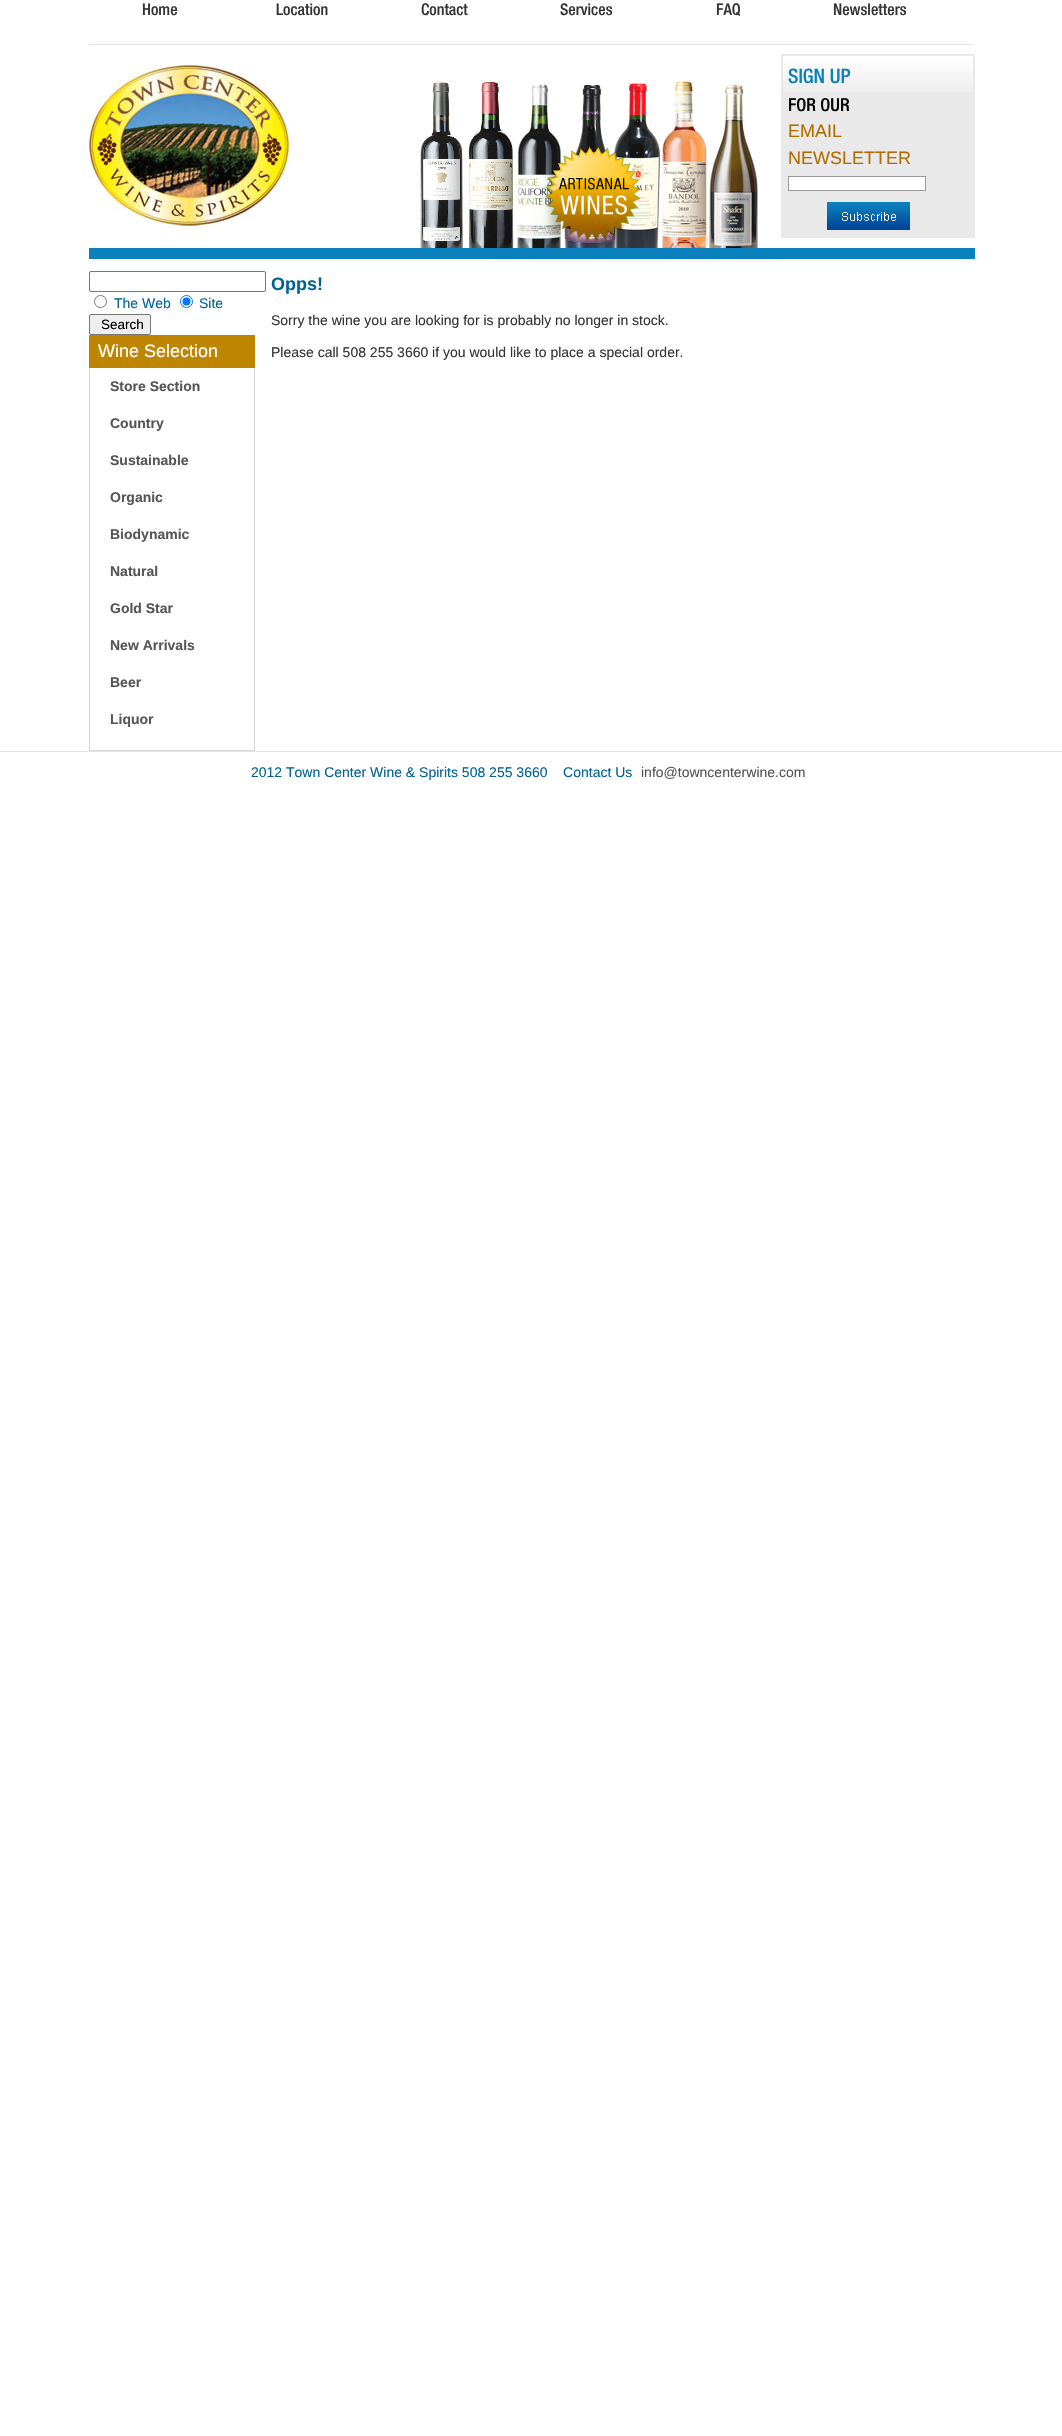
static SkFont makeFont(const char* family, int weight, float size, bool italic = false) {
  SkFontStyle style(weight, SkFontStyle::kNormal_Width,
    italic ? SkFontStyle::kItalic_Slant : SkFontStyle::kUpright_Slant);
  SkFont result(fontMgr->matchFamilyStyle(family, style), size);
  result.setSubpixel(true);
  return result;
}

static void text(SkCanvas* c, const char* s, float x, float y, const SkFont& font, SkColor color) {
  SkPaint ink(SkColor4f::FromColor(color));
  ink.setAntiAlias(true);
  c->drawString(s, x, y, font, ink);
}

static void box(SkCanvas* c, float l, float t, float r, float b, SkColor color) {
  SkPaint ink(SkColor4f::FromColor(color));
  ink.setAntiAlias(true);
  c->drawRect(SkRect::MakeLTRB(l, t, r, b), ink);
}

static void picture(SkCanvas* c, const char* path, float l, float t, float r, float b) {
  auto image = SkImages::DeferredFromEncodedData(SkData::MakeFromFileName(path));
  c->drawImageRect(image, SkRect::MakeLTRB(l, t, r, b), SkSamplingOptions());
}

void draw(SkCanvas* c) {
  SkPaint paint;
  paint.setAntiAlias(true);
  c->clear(0xffffffff);
  box(c, 89, 44, 973, 45, 0xffe5e5e5);
  SkFont face1 = makeFont("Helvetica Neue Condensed", 500, 16);
  text(c, "Home", 142, 15, face1, 0xff333333);
  text(c, "Location", 276, 15, face1, 0xff333333);
  text(c, "Contact", 421, 15, face1, 0xff333333);
  text(c, "Services", 560, 15, face1, 0xff333333);
  text(c, "FAQ", 716, 15, face1, 0xff333333);
  text(c, "Newsletters", 833, 15, face1, 0xff333333);
  picture(c, "img_01.png", 420, 81, 758, 248);
  picture(c, "img_02.png", 89, 65, 289, 226);
  box(c, 783, 92, 973, 236, 0xffe9e9e9);
  picture(c, "img_03.png", 783, 56, 973, 92);
  paint.setStyle(SkPaint::kStroke_Style);
  paint.setStrokeWidth(2);
  paint.setColor(0xffe9e9e9);
  c->drawRect(SkRect::MakeLTRB(782, 55, 974, 237), paint);
  SkFont face2 = makeFont("Helvetica Neue Condensed", 500, 20);
  text(c, "SIGN UP", 788, 83, face2, 0xff0b80bd);
  SkFont face3 = makeFont("Helvetica Neue Condensed", 500, 18);
  text(c, "FOR OUR", 788, 111, face3, 0xff000000);
  SkFont face4 = makeFont("Liberation Sans", 400, 18);
  text(c, "EMAIL", 788, 137, face4, 0xffb16c00);
  text(c, "NEWSLETTER", 788, 164, face4, 0xffb16c00);
  paint.setStyle(SkPaint::kFill_Style);
  paint.setColor(0xffffffff);
  c->drawRect(SkRect::MakeLTRB(788.5f, 176.5f, 925.5f, 190.5f), paint);
  paint.setStyle(SkPaint::kStroke_Style);
  paint.setStrokeWidth(1);
  paint.setColor(0xff999999);
  c->drawRect(SkRect::MakeLTRB(788.5f, 176.5f, 925.5f, 190.5f), paint);
  picture(c, "img_04.png", 827, 202, 910, 230);
  box(c, 89, 248, 975, 259, 0xff0b80bd);
  paint.setColor(0xff767676);
  c->drawRoundRect(SkRect::MakeLTRB(89.5f, 271.5f, 265.5f, 291.5f), 1.5f, 1.5f, paint);
  c->drawCircle(100.5f, 301.5f, 6, paint);
  SkFont face5 = makeFont("Liberation Sans", 400, 14);
  text(c, "The Web", 114, 308, face5, 0xff006396);
  paint.setColor(0xff0075ff);
  c->drawCircle(186.5f, 301.5f, 6, paint);
  paint.setStyle(SkPaint::kFill_Style);
  c->drawCircle(186.5f, 301.5f, 4, paint);
  text(c, "Site", 199, 308, face5, 0xff006396);
  paint.setColor(0xffefefef);
  c->drawRoundRect(SkRect::MakeLTRB(89.5f, 314.5f, 150.5f, 334.5f), 1.5f, 1.5f, paint);
  paint.setStyle(SkPaint::kStroke_Style);
  paint.setColor(0xff767676);
  c->drawRoundRect(SkRect::MakeLTRB(89.5f, 314.5f, 150.5f, 334.5f), 1.5f, 1.5f, paint);
  SkFont face6 = makeFont("Liberation Sans", 400, 13.5f);
  text(c, "Search", 101, 329, face6, 0xff000000);
  box(c, 89, 335, 255, 368, 0xffbe8600);
  text(c, "Wine Selection", 98, 357, face4, 0xffffffff);
  box(c, 254, 368, 255, 751, 0xffd6d6d6);
  box(c, 89, 750, 255, 751, 0xffd6d6d6);
  box(c, 89, 368, 90, 751, 0xffd6d6d6);
  SkFont face7 = makeFont("Liberation Sans", 700, 14);
  text(c, "Store Section", 110, 391, face7, 0xff555555);
  text(c, "Country", 110, 428, face7, 0xff555555);
  text(c, "Sustainable", 110, 465, face7, 0xff555555);
  text(c, "Organic", 110, 502, face7, 0xff555555);
  text(c, "Biodynamic", 110, 539, face7, 0xff555555);
  text(c, "Natural", 110, 576, face7, 0xff555555);
  text(c, "Gold Star", 110, 613, face7, 0xff555555);
  text(c, "New Arrivals", 110, 650, face7, 0xff555555);
  text(c, "Beer", 110, 687, face7, 0xff555555);
  text(c, "Liquor", 110, 724, face7, 0xff555555);
  SkFont face8 = makeFont("Liberation Sans", 700, 18);
  text(c, "Opps!", 271, 290, face8, 0xff006396);
  text(c, "Sorry the wine you are looking for is probably no longer in stock.", 271, 325, face5, 0xff333333);
  text(c, "Please call 508 255 3660 if you would like to place a special order.", 271, 357, face5, 0xff333333);
  box(c, 0, 751, 1062, 752, 0xffe5e5e5);
  text(c, "2012 Town Center Wine & Spirits 508 255 3660    Contact Us", 251, 777, face5, 0xff006396);
  text(c, "info@towncenterwine.com", 641, 777, face5, 0xff555555);
}
